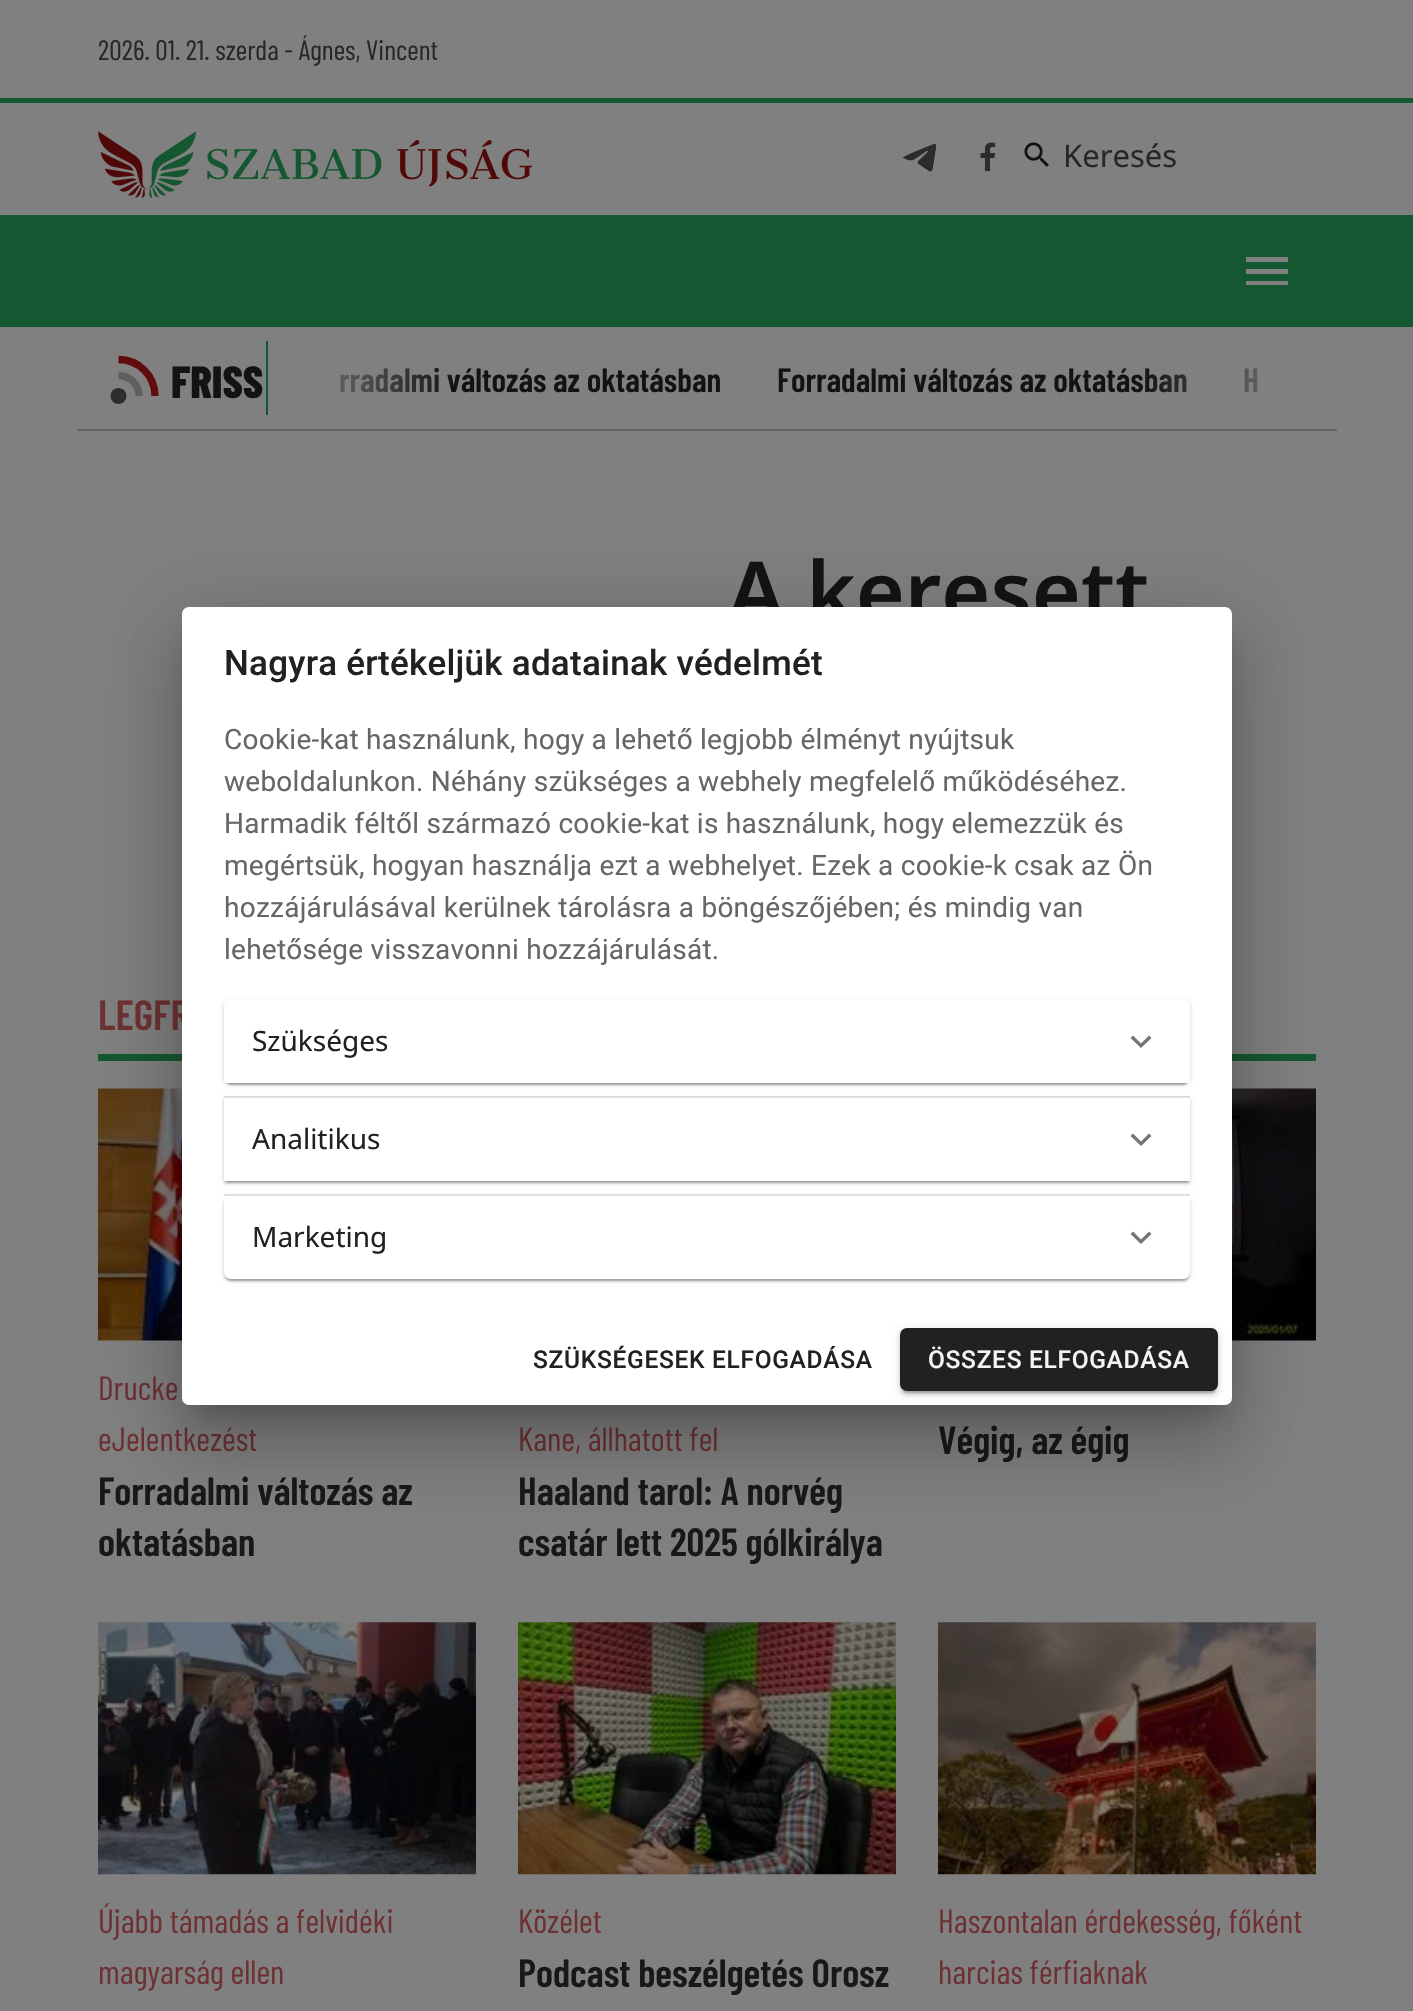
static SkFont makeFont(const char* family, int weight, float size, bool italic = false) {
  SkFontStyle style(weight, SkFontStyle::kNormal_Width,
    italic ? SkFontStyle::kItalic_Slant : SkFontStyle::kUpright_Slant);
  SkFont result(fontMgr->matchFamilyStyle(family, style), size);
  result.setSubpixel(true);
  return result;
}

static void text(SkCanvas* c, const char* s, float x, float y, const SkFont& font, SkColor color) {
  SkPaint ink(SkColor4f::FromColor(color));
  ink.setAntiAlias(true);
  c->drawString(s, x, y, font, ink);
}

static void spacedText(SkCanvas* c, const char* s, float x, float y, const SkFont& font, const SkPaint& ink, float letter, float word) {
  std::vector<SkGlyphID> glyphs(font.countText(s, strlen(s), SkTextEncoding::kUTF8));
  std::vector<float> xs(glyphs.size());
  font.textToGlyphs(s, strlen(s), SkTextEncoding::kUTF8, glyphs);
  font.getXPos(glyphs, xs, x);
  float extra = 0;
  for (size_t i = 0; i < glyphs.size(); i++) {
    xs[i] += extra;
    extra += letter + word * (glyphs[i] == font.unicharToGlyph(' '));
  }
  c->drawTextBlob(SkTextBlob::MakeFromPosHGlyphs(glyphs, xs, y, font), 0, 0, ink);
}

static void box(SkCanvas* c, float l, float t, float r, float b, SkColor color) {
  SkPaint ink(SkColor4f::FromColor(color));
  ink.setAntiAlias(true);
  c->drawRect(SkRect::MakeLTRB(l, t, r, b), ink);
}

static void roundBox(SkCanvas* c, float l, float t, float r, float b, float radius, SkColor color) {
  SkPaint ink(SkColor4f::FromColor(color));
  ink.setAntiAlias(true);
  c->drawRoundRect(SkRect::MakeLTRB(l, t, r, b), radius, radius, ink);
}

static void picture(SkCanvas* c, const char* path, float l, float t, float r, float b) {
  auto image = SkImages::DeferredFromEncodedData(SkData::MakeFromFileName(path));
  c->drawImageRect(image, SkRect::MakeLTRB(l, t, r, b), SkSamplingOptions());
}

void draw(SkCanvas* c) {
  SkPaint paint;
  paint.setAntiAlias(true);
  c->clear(0xff808080);
  box(c, 0, 98, 1413, 103, 0xff145731);
  SkFont face1 = makeFont("Barlow Condensed", 400, 28);
  text(c, "2026. 01. 21. szerda - Ágnes, Vincent", 98, 60, face1, 0xff272727);
  picture(c, "img_01.png", 98, 131, 532, 198);
  picture(c, "img_02.png", 903, 144, 937, 172);
  picture(c, "img_03.png", 980, 142, 996, 172);
  picture(c, "img_04.png", 1024, 142, 1049, 167);
  SkFont face2 = makeFont("Noto Sans", 400, 31);
  text(c, "Keresés", 1063, 167, face2, 0xff272727);
  box(c, 0, 215, 1413, 327, 0xff145731);
  paint.setColor(0xff808080);
  c->drawPath(SkPathBuilder().moveTo(1246, 285).lineTo(1288, 285).lineTo(1288, 281).lineTo(1246, 281).close().moveTo(1246, 274).lineTo(1288, 274).lineTo(1288, 269).lineTo(1246, 269).close().moveTo(1246, 257).lineTo(1246, 262).lineTo(1288, 262).lineTo(1288, 257).close().detach(), paint);
  box(c, 266, 341, 268, 415, 0xff145731);
  paint.setColor(0xff2e2e2e);
  c->drawCircle(118.5f, 396, 8, paint);
  paint.setStyle(SkPaint::kStroke_Style);
  paint.setStrokeWidth(7.3f);
  paint.setColor(0xff5f5f5f);
  c->drawPath(SkPathBuilder().moveTo(118.5f, 375.5f).cubicTo(129.5f, 375.5f, 139, 384.5f, 139, 396).detach(), paint);
  paint.setColor(0xff600c0c);
  c->drawPath(SkPathBuilder().moveTo(118.5f, 359.5f).cubicTo(138.5f, 359.5f, 155, 375.5f, 155, 396).detach(), paint);
  SkFont face3 = makeFont("Barlow Condensed", 800, 45);
  text(c, "FRISS", 171, 398, face3, 0xff111315);
  SkFont face4 = makeFont("Barlow Condensed", 600, 33.6f);
  text(c, "rradalmi változás az oktatásban", 339, 392, face4, 0xff111315);
  text(c, "Forradalmi változás az oktatásban", 777, 392, face4, 0xff111315);
  text(c, "H", 1243, 392, face4, 0xff111315);
  paint.setStyle(SkPaint::kFill_Style);
  {
    const SkColor colors[] = {0xff808080, 0x00808080};
    const float stops[] = {0, 1};
    const SkPoint ends[] = {{282, 381}, {457, 381}};
    paint.setShader(SkGradientShader::MakeLinear(ends, colors, stops, 2, SkTileMode::kClamp));
    paint.setAlpha(255);
  }
  c->drawRect(SkRect::MakeLTRB(340, 367, 452, 393), paint);
  {
    const SkColor colors[] = {0xff808080, 0x00808080};
    const float stops[] = {0, 1};
    const SkPoint ends[] = {{1316, 380}, {1141, 380}};
    paint.setShader(SkGradientShader::MakeLinear(ends, colors, stops, 2, SkTileMode::kClamp));
    paint.setAlpha(255);
  }
  c->drawRect(SkRect::MakeLTRB(1146, 368, 1258, 393), paint);
  box(c, 77, 429, 1337, 431, 0xff646565);
  SkFont face5 = makeFont("Noto Sans", 600, 84);
  text(c, "A keresett", 728, 622, face5, 0xff111315);
  box(c, 98, 1054, 1316, 1061, 0xff145731);
  SkFont face6 = makeFont("Barlow Condensed", 600, 42);
  text(c, "LEGFR", 98, 1030, face6, 0xff6d3133);
  picture(c, "img_05.png", 98, 1088, 182, 1341);
  SkFont face7 = makeFont("Barlow Condensed", 400, 33.6f);
  text(c, "Drucke", 98, 1400, face7, 0xff6d3133);
  text(c, "eJelentkezést", 98, 1451, face7, 0xff6d3133);
  SkFont face8 = makeFont("Barlow Condensed", 600, 39.25f);
  text(c, "Forradalmi változás az", 98, 1505, face8, 0xff181818);
  text(c, "oktatásban", 98, 1556, face8, 0xff181818);
  text(c, "Kane, állhatott fel", 518, 1451, face7, 0xff6d3133);
  text(c, "Haaland tarol: A norvég", 518, 1505, face8, 0xff181818);
  text(c, "csatár lett 2025 gólkirálya", 518, 1556, face8, 0xff181818);
  picture(c, "img_06.png", 1232, 1088, 1316, 1341);
  text(c, "Végig, az égig", 938, 1454, face8, 0xff181818);
  picture(c, "img_07.png", 98, 1622, 476, 1875);
  text(c, "Újabb támadás a felvidéki", 98, 1933, face7, 0xff6d3133);
  text(c, "magyarság ellen", 98, 1984, face7, 0xff6d3133);
  picture(c, "img_08.png", 518, 1622, 896, 1875);
  text(c, "Közélet", 518, 1933, face7, 0xff6d3133);
  text(c, "Podcast beszélgetés Orosz", 518, 1987, face8, 0xff181818);
  picture(c, "img_09.png", 938, 1622, 1316, 1875);
  text(c, "Haszontalan érdekesség, főként", 938, 1933, face7, 0xff6d3133);
  text(c, "harcias férfiaknak", 938, 1984, face7, 0xff6d3133);
  paint.setShader(nullptr);
  paint.setColor(0x1f000000);
  paint.setMaskFilter(SkMaskFilter::MakeBlur(kNormal_SkBlurStyle, 40));
  c->drawRoundRect(SkRect::MakeLTRB(168, 609, 1246, 1435), 21, 21, paint);
  paint.setMaskFilter(nullptr);
  paint.setColor(0x24000000);
  paint.setMaskFilter(SkMaskFilter::MakeBlur(kNormal_SkBlurStyle, 33));
  c->drawRoundRect(SkRect::MakeLTRB(177, 644, 1237, 1453), 12, 12, paint);
  paint.setMaskFilter(nullptr);
  paint.setColor(0x33000000);
  paint.setMaskFilter(SkMaskFilter::MakeBlur(kNormal_SkBlurStyle, 13));
  c->drawRect(SkRect::MakeLTRB(194, 639, 1220, 1412), paint);
  paint.setMaskFilter(nullptr);
  roundBox(c, 182, 607, 1232, 1405, 7, 0xffffffff);
  SkFont face9 = makeFont("Roboto", 500, 35);
  paint.setColor(0xff212121);
  spacedText(c, "Nagyra értékeljük adatainak védelmét", 224, 675, face9, paint, 0.25f, 0);
  SkFont face10 = makeFont("Roboto", 400, 28);
  paint.setColor(0xff666666);
  spacedText(c, "Cookie-kat használunk, hogy a lehető legjobb élményt nyújtsuk", 224, 749, face10, paint, 0.25f, 0);
  spacedText(c, "weboldalunkon. Néhány szükséges a webhely megfelelő működéséhez.", 224, 791, face10, paint, 0.25f, 0);
  spacedText(c, "Harmadik féltől származó cookie-kat is használunk, hogy elemezzük és", 224, 833, face10, paint, 0.25f, 0);
  spacedText(c, "megértsük, hogyan használja ezt a webhelyet. Ezek a cookie-k csak az Ön", 224, 875, face10, paint, 0.25f, 0);
  spacedText(c, "hozzájárulásával kerülnek tárolásra a böngészőjében; és mindig van", 224, 917, face10, paint, 0.25f, 0);
  spacedText(c, "lehetősége visszavonni hozzájárulását.", 224, 959, face10, paint, 0.25f, 0);
  paint.setColor(0x1f000000);
  paint.setMaskFilter(SkMaskFilter::MakeBlur(kNormal_SkBlurStyle, 2.5f));
  c->drawRoundRect(SkRect::MakeLTRB(224, 1001, 1190, 1085), 7, 7, paint);
  paint.setMaskFilter(nullptr);
  paint.setColor(0x24000000);
  paint.setMaskFilter(SkMaskFilter::MakeBlur(kNormal_SkBlurStyle, 1));
  c->drawRoundRect(SkRect::MakeLTRB(224, 1001, 1190, 1085), 7, 7, paint);
  paint.setMaskFilter(nullptr);
  paint.setColor(0x33000000);
  paint.setMaskFilter(SkMaskFilter::MakeBlur(kNormal_SkBlurStyle, 1));
  c->drawRoundRect(SkRect::MakeLTRB(226, 1005, 1188, 1085), 5, 5, paint);
  paint.setMaskFilter(nullptr);
  paint.setColor(0xffffffff);
  c->drawPath(SkPathBuilder().moveTo(231, 999).lineTo(1183, 999).cubicTo(1187, 999, 1190, 1002, 1190, 1006).lineTo(1190, 1083).lineTo(224, 1083).lineTo(224, 1006).cubicTo(224, 1002, 227, 999, 231, 999).close().detach(), paint);
  SkFont face11 = makeFont("Noto Sans", 400, 28);
  text(c, "Szükséges", 252, 1051, face11, 0xff212121);
  paint.setColor(0xff757575);
  c->drawPath(SkPathBuilder().moveTo(1149, 1035.5f).lineTo(1141, 1043.5f).lineTo(1133, 1035.5f).lineTo(1130.5f, 1038).lineTo(1141, 1048).lineTo(1151.5f, 1038).close().detach(), paint);
  paint.setColor(0x1f000000);
  paint.setMaskFilter(SkMaskFilter::MakeBlur(kNormal_SkBlurStyle, 2.5f));
  c->drawRect(SkRect::MakeLTRB(224, 1099, 1190, 1183), paint);
  paint.setMaskFilter(nullptr);
  paint.setColor(0x24000000);
  paint.setMaskFilter(SkMaskFilter::MakeBlur(kNormal_SkBlurStyle, 1));
  c->drawRect(SkRect::MakeLTRB(224, 1099, 1190, 1183), paint);
  paint.setMaskFilter(nullptr);
  paint.setColor(0x33000000);
  paint.setMaskFilter(SkMaskFilter::MakeBlur(kNormal_SkBlurStyle, 1));
  c->drawRect(SkRect::MakeLTRB(226, 1103, 1188, 1183), paint);
  paint.setMaskFilter(nullptr);
  box(c, 224, 1097, 1190, 1181, 0xffffffff);
  box(c, 224, 1096, 1190, 1098, 0x1f000000);
  text(c, "Analitikus", 252, 1149, face11, 0xff212121);
  paint.setColor(0xff757575);
  c->drawPath(SkPathBuilder().moveTo(1149, 1133.5f).lineTo(1141, 1141.5f).lineTo(1133, 1133.5f).lineTo(1130.5f, 1136).lineTo(1141, 1146).lineTo(1151.5f, 1136).close().detach(), paint);
  paint.setColor(0x1f000000);
  paint.setMaskFilter(SkMaskFilter::MakeBlur(kNormal_SkBlurStyle, 2.5f));
  c->drawRoundRect(SkRect::MakeLTRB(224, 1197, 1190, 1281), 7, 7, paint);
  paint.setMaskFilter(nullptr);
  paint.setColor(0x24000000);
  paint.setMaskFilter(SkMaskFilter::MakeBlur(kNormal_SkBlurStyle, 1));
  c->drawRoundRect(SkRect::MakeLTRB(224, 1197, 1190, 1281), 7, 7, paint);
  paint.setMaskFilter(nullptr);
  paint.setColor(0x33000000);
  paint.setMaskFilter(SkMaskFilter::MakeBlur(kNormal_SkBlurStyle, 1));
  c->drawRoundRect(SkRect::MakeLTRB(226, 1201, 1188, 1281), 5, 5, paint);
  paint.setMaskFilter(nullptr);
  paint.setColor(0xffffffff);
  c->drawPath(SkPathBuilder().moveTo(224, 1195).lineTo(1190, 1195).lineTo(1190, 1272).cubicTo(1190, 1276, 1187, 1279, 1183, 1279).lineTo(231, 1279).cubicTo(227, 1279, 224, 1276, 224, 1272).close().detach(), paint);
  box(c, 224, 1194, 1190, 1196, 0x1f000000);
  text(c, "Marketing", 252, 1247, face11, 0xff212121);
  paint.setColor(0xff757575);
  c->drawPath(SkPathBuilder().moveTo(1149, 1231.5f).lineTo(1141, 1239.5f).lineTo(1133, 1231.5f).lineTo(1130.5f, 1234).lineTo(1141, 1244).lineTo(1151.5f, 1234).close().detach(), paint);
  SkFont face12 = makeFont("Roboto", 500, 24.5f);
  paint.setColor(0xff212121);
  spacedText(c, "SZÜKSÉGESEK ELFOGADÁSA", 533, 1368, face12, paint, 0.7f, 0);
  paint.setColor(0x1f000000);
  paint.setMaskFilter(SkMaskFilter::MakeBlur(kNormal_SkBlurStyle, 4.5f));
  c->drawRoundRect(SkRect::MakeLTRB(900, 1330, 1218, 1393), 7, 7, paint);
  paint.setMaskFilter(nullptr);
  paint.setColor(0x24000000);
  paint.setMaskFilter(SkMaskFilter::MakeBlur(kNormal_SkBlurStyle, 2));
  c->drawRoundRect(SkRect::MakeLTRB(900, 1332, 1218, 1395), 7, 7, paint);
  paint.setMaskFilter(nullptr);
  paint.setColor(0x33000000);
  paint.setMaskFilter(SkMaskFilter::MakeBlur(kNormal_SkBlurStyle, 1));
  c->drawRoundRect(SkRect::MakeLTRB(903, 1337, 1215, 1393), 4, 4, paint);
  paint.setMaskFilter(nullptr);
  roundBox(c, 900, 1328, 1218, 1391, 7, 0xff212121);
  paint.setColor(0xfff4f4f4);
  spacedText(c, "ÖSSZES ELFOGADÁSA", 928, 1368, face12, paint, 0.7f, 0);
}
